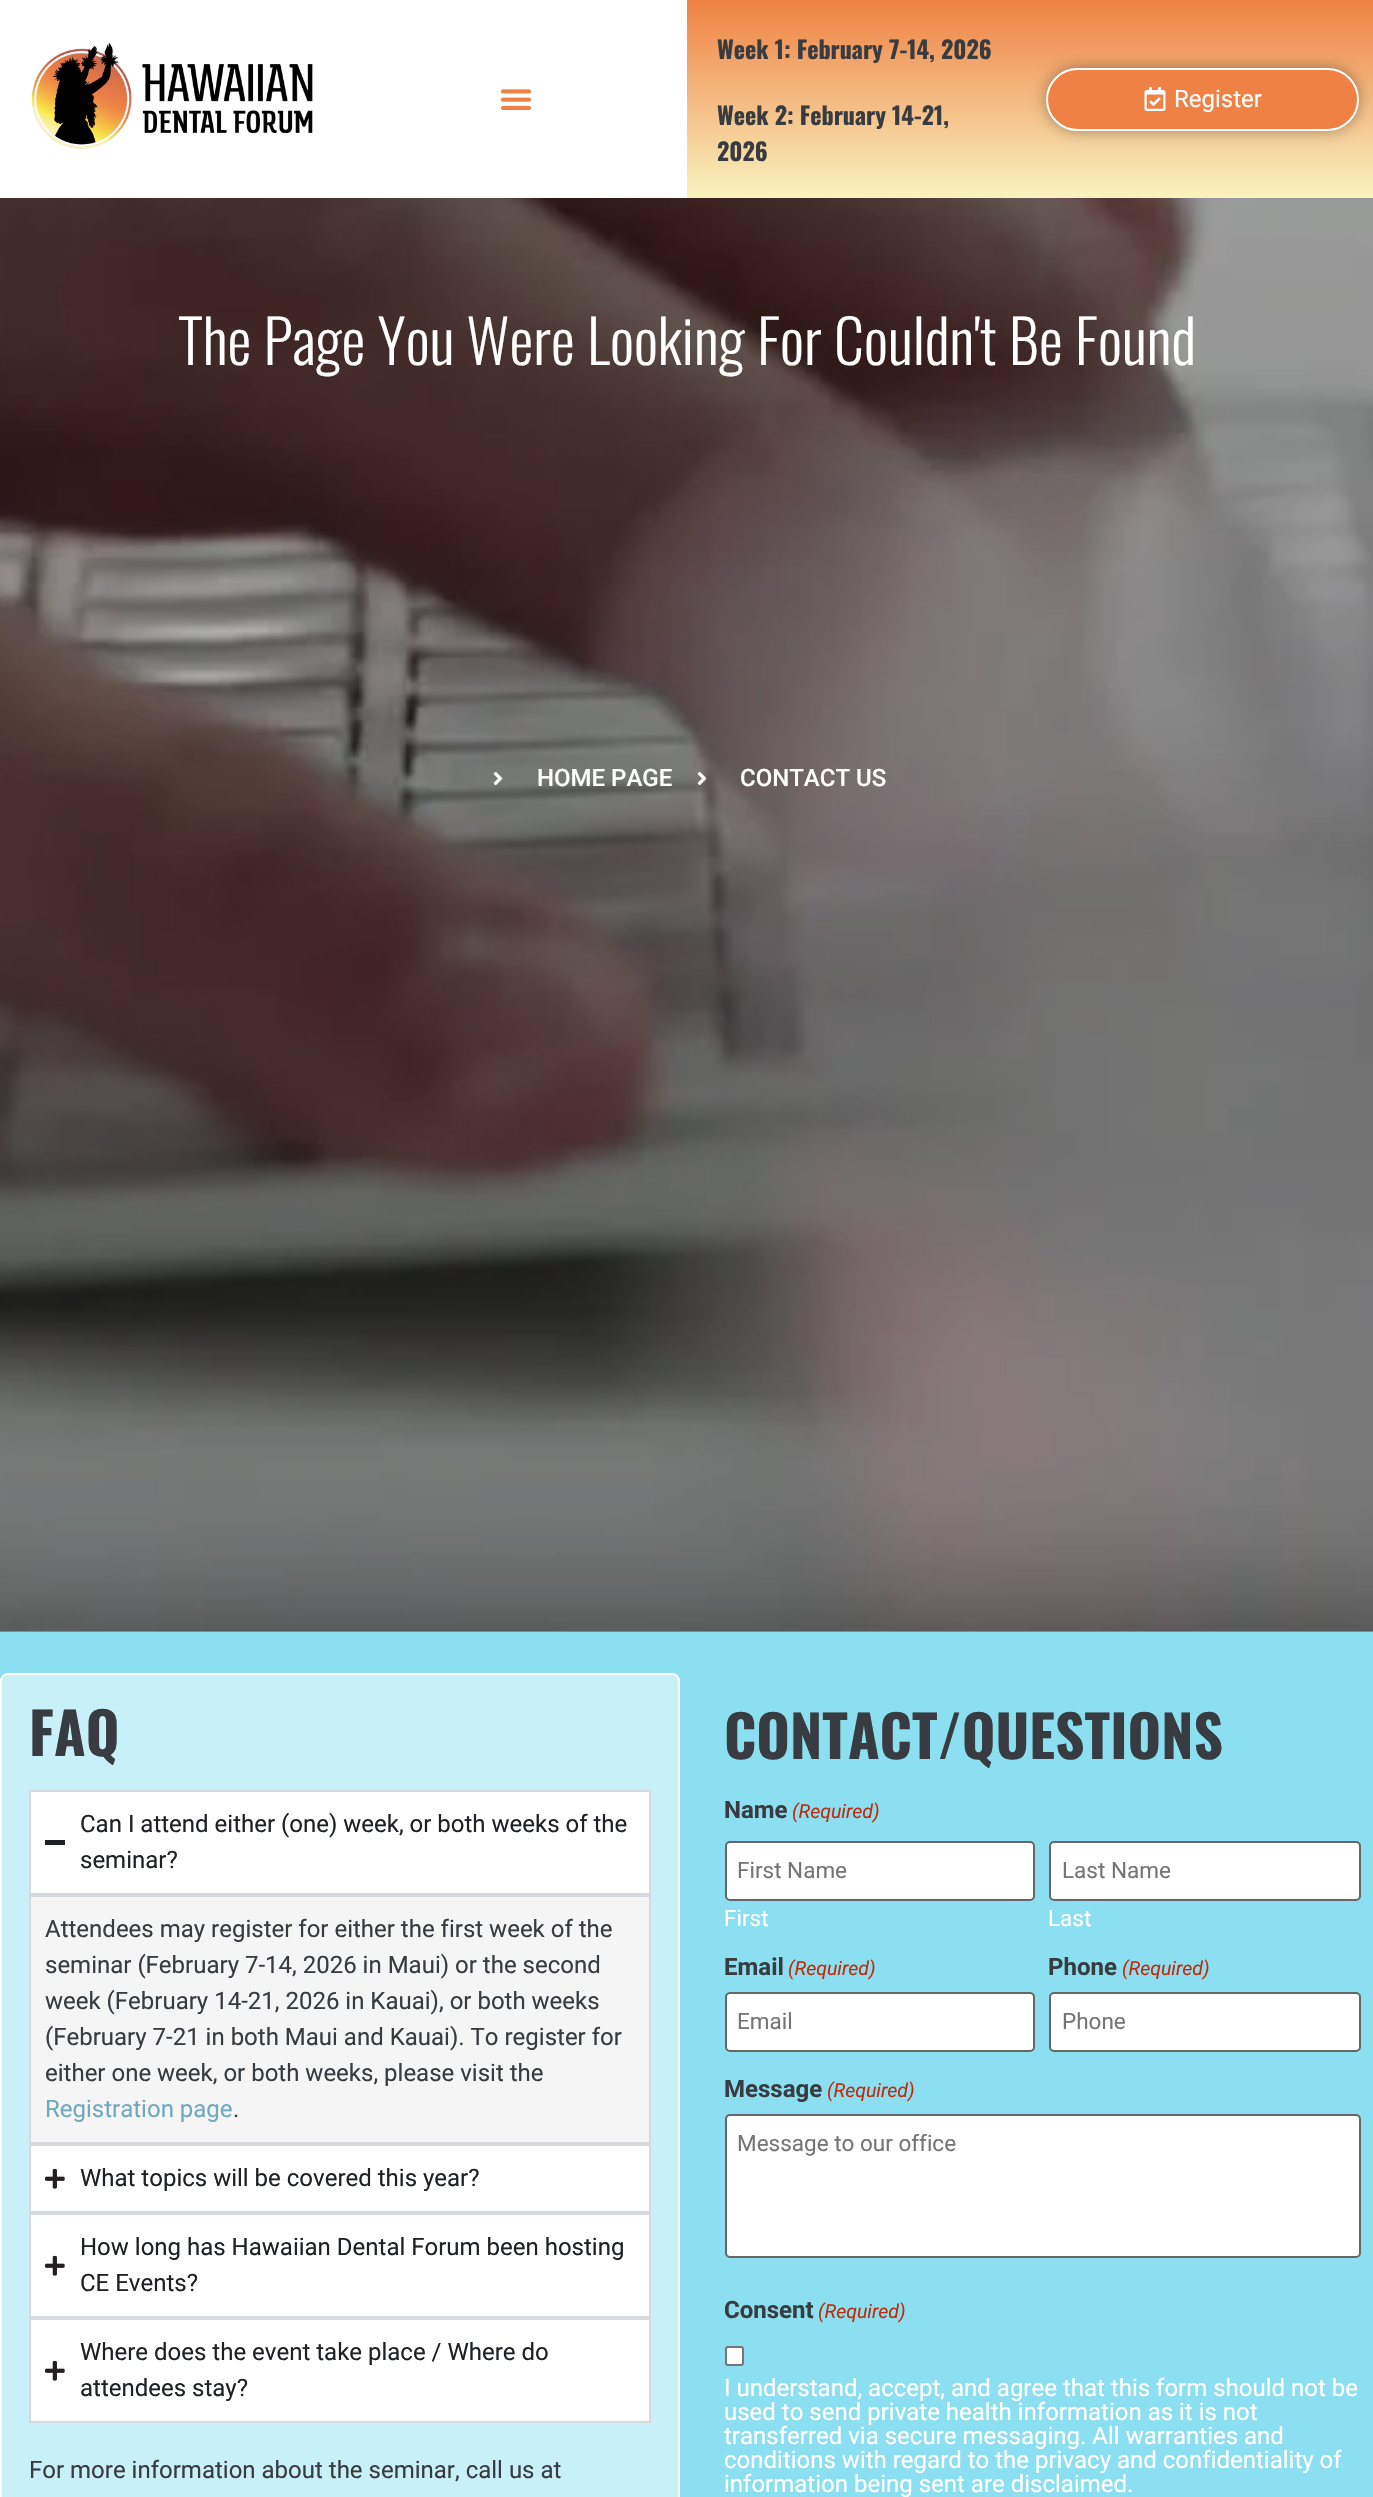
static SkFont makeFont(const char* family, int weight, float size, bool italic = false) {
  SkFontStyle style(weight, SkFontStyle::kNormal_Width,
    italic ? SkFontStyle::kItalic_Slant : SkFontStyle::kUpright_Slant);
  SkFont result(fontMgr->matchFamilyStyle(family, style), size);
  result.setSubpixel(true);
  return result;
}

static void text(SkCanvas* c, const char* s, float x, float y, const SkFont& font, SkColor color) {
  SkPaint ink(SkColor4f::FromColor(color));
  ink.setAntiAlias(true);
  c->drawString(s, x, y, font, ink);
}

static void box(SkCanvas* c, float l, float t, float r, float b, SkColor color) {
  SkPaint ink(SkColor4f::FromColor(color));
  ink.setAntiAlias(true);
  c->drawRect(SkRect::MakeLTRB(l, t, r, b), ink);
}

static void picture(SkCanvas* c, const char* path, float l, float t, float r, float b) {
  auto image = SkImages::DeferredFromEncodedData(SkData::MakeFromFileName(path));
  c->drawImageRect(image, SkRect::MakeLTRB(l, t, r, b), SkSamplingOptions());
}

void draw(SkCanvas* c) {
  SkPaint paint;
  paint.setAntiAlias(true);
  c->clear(0xffb5b5b5);
  box(c, 0, 0, 687, 198, 0xffffffff);
  picture(c, "img_01.png", 31, 43, 313, 149);
  picture(c, "img_02.png", 500, 89, 532, 110);
  {
    const SkColor colors[] = {0xffef8144, 0xfff9f3bf};
    const float stops[] = {0, 1};
    const SkPoint ends[] = {{859, 0}, {859, 198}};
    paint.setShader(SkGradientShader::MakeLinear(ends, colors, stops, 2, SkTileMode::kClamp));
    paint.setAlpha(255);
  }
  c->drawRect(SkRect::MakeLTRB(687, 0, 1031, 198), paint);
  SkFont face1 = makeFont("Oswald", 700, 24);
  text(c, "Week 1: February 7-14, 2026", 717, 59, face1, 0xff383c41);
  text(c, "Week 2: February 14-21,", 717, 125, face1, 0xff383c41);
  text(c, "2026", 717, 161, face1, 0xff383c41);
  {
    const SkColor colors[] = {0xffef8144, 0xfff9f3bf};
    const float stops[] = {0, 1};
    const SkPoint ends[] = {{1202, 0}, {1202, 198}};
    paint.setShader(SkGradientShader::MakeLinear(ends, colors, stops, 2, SkTileMode::kClamp));
    paint.setAlpha(255);
  }
  c->drawRect(SkRect::MakeLTRB(1031, 0, 1373, 198), paint);
  paint.setShader(nullptr);
  paint.setColor(0x59000000);
  paint.setMaskFilter(SkMaskFilter::MakeBlur(kNormal_SkBlurStyle, 7.5f));
  c->drawRoundRect(SkRect::MakeLTRB(1046, 68, 1359, 131), 31.5f, 31.5f, paint);
  paint.setMaskFilter(nullptr);
  paint.setColor(0xffef8144);
  c->drawRoundRect(SkRect::MakeLTRB(1047, 69, 1358, 130), 30.5f, 30.5f, paint);
  paint.setStyle(SkPaint::kStroke_Style);
  paint.setStrokeWidth(2);
  paint.setColor(0xffffffff);
  c->drawRoundRect(SkRect::MakeLTRB(1047, 69, 1358, 130), 30.5f, 30.5f, paint);
  picture(c, "img_03.png", 1144, 87, 1166, 111);
  SkFont face2 = makeFont("Roboto", 400, 24);
  text(c, "Register", 1174, 107, face2, 0xffffffff);
  picture(c, "img_04.png", 0, 198, 1373, 1632);
  SkFont face3 = makeFont("Oswald", 300, 60);
  text(c, "The Page You Were Looking For Couldn't Be Found", 178, 365, face3, 0xffffffff);
  picture(c, "img_05.png", 493, 772, 503, 785);
  SkFont face4 = makeFont("Roboto", 500, 24);
  text(c, "HOME PAGE", 537, 786, face4, 0xffffffff);
  picture(c, "img_06.png", 697, 772, 707, 785);
  text(c, "CONTACT US", 740, 786, face4, 0xffffffff);
  box(c, 0, 1632, 1373, 2497, 0xff8cdff0);
  paint.setStyle(SkPaint::kFill_Style);
  paint.setColor(0xffc8f0f8);
  c->drawRoundRect(SkRect::MakeLTRB(1, 1674, 679, 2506), 7, 7, paint);
  paint.setStyle(SkPaint::kStroke_Style);
  paint.setColor(0xffffffff);
  c->drawRoundRect(SkRect::MakeLTRB(1, 1674, 679, 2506), 7, 7, paint);
  SkFont face5 = makeFont("Oswald", 700, 57.5f);
  text(c, "FAQ", 29, 1756, face5, 0xff383c41);
  paint.setStyle(SkPaint::kFill_Style);
  c->drawRect(SkRect::MakeLTRB(30, 1791, 650, 1894), paint);
  paint.setStyle(SkPaint::kStroke_Style);
  paint.setColor(0xffd5d8dc);
  c->drawRect(SkRect::MakeLTRB(30, 1791, 650, 1894), paint);
  box(c, 45, 1840, 65, 1845, 0xff1f2124);
  text(c, "Can I attend either (one) week, or both weeks of the", 80, 1832, face2, 0xff1f2124);
  text(c, "seminar?", 80, 1868, face2, 0xff1f2124);
  paint.setStyle(SkPaint::kFill_Style);
  paint.setColor(0xfff5f5f5);
  c->drawRect(SkRect::MakeLTRB(30, 1896, 650, 2143), paint);
  paint.setStyle(SkPaint::kStroke_Style);
  paint.setColor(0xffd5d8dc);
  c->drawRect(SkRect::MakeLTRB(30, 1896, 650, 2143), paint);
  text(c, "Attendees may register for either the first week of the", 45, 1937, face2, 0xff383c41);
  text(c, "seminar (February 7-14, 2026 in Maui) or the second", 45, 1973, face2, 0xff383c41);
  text(c, "week (February 14-21, 2026 in Kauai), or both weeks", 45, 2009, face2, 0xff383c41);
  text(c, "(February 7-21 in both Maui and Kauai). To register for", 45, 2045, face2, 0xff383c41);
  text(c, "either one week, or both weeks, please visit the", 45, 2081, face2, 0xff383c41);
  text(c, "Registration page", 45, 2117, face2, 0xff70a9be);
  text(c, ".", 233, 2117, face2, 0xff383c41);
  paint.setStyle(SkPaint::kFill_Style);
  paint.setColor(0xffffffff);
  c->drawRect(SkRect::MakeLTRB(30, 2145, 650, 2212), paint);
  paint.setStyle(SkPaint::kStroke_Style);
  paint.setColor(0xffd5d8dc);
  c->drawRect(SkRect::MakeLTRB(30, 2145, 650, 2212), paint);
  picture(c, "img_07.png", 45, 2168, 65, 2189);
  text(c, "What topics will be covered this year?", 80, 2186, face2, 0xff1f2124);
  paint.setStyle(SkPaint::kFill_Style);
  paint.setColor(0xffffffff);
  c->drawRect(SkRect::MakeLTRB(30, 2214, 650, 2317), paint);
  paint.setStyle(SkPaint::kStroke_Style);
  paint.setColor(0xffd5d8dc);
  c->drawRect(SkRect::MakeLTRB(30, 2214, 650, 2317), paint);
  picture(c, "img_07.png", 45, 2255, 65, 2276);
  text(c, "How long has Hawaiian Dental Forum been hosting", 80, 2255, face2, 0xff1f2124);
  text(c, "CE Events?", 80, 2291, face2, 0xff1f2124);
  paint.setStyle(SkPaint::kFill_Style);
  paint.setColor(0xffffffff);
  c->drawRect(SkRect::MakeLTRB(30, 2319, 650, 2422), paint);
  paint.setStyle(SkPaint::kStroke_Style);
  paint.setColor(0xffd5d8dc);
  c->drawRect(SkRect::MakeLTRB(30, 2319, 650, 2422), paint);
  picture(c, "img_07.png", 45, 2360, 65, 2381);
  text(c, "Where does the event take place / Where do", 80, 2360, face2, 0xff1f2124);
  text(c, "attendees stay?", 80, 2396, face2, 0xff1f2124);
  text(c, "For more information about the seminar, call us at", 29, 2478, face2, 0xff383c41);
  text(c, "CONTACT/QUESTIONS", 724, 1759, face5, 0xff383c41);
  SkFont face6 = makeFont("Roboto", 700, 24);
  text(c, "Name", 724, 1818, face6, 0xff383c41);
  SkFont face7 = makeFont("Roboto", 400, 19.5f, true);
  text(c, "(Required)", 792, 1818, face7, 0xffc02b0a);
  paint.setStyle(SkPaint::kFill_Style);
  paint.setColor(0xffffffff);
  c->drawRoundRect(SkRect::MakeLTRB(726, 1842, 1034, 1900), 4, 4, paint);
  paint.setStyle(SkPaint::kStroke_Style);
  paint.setColor(0xff666666);
  c->drawRoundRect(SkRect::MakeLTRB(726, 1842, 1034, 1900), 4, 4, paint);
  SkFont face8 = makeFont("Roboto", 400, 22.5f);
  text(c, "First Name", 737, 1878, face8, 0xff757575);
  text(c, "First", 724, 1926, face8, 0xffffffff);
  paint.setStyle(SkPaint::kFill_Style);
  paint.setColor(0xffffffff);
  c->drawRoundRect(SkRect::MakeLTRB(1050, 1842, 1360, 1900), 4, 4, paint);
  paint.setStyle(SkPaint::kStroke_Style);
  paint.setColor(0xff666666);
  c->drawRoundRect(SkRect::MakeLTRB(1050, 1842, 1360, 1900), 4, 4, paint);
  text(c, "Last Name", 1062, 1878, face8, 0xff757575);
  text(c, "Last", 1048, 1926, face8, 0xffffffff);
  text(c, "Email", 724, 1975, face6, 0xff383c41);
  text(c, "(Required)", 788, 1975, face7, 0xffc02b0a);
  paint.setStyle(SkPaint::kFill_Style);
  paint.setColor(0xffffffff);
  c->drawRoundRect(SkRect::MakeLTRB(726, 1993, 1034, 2051), 4, 4, paint);
  paint.setStyle(SkPaint::kStroke_Style);
  paint.setColor(0xff666666);
  c->drawRoundRect(SkRect::MakeLTRB(726, 1993, 1034, 2051), 4, 4, paint);
  text(c, "Email", 737, 2029, face8, 0xff757575);
  text(c, "Phone", 1048, 1975, face6, 0xff383c41);
  text(c, "(Required)", 1122, 1975, face7, 0xffc02b0a);
  paint.setStyle(SkPaint::kFill_Style);
  paint.setColor(0xffffffff);
  c->drawRoundRect(SkRect::MakeLTRB(1050, 1993, 1360, 2051), 4, 4, paint);
  paint.setStyle(SkPaint::kStroke_Style);
  paint.setColor(0xff666666);
  c->drawRoundRect(SkRect::MakeLTRB(1050, 1993, 1360, 2051), 4, 4, paint);
  text(c, "Phone", 1062, 2029, face8, 0xff757575);
  text(c, "Message", 724, 2097, face6, 0xff383c41);
  text(c, "(Required)", 827, 2097, face7, 0xffc02b0a);
  paint.setStyle(SkPaint::kFill_Style);
  paint.setColor(0xffffffff);
  c->drawRoundRect(SkRect::MakeLTRB(726, 2115, 1360, 2257), 4, 4, paint);
  paint.setStyle(SkPaint::kStroke_Style);
  paint.setColor(0xff666666);
  c->drawRoundRect(SkRect::MakeLTRB(726, 2115, 1360, 2257), 4, 4, paint);
  text(c, "Message to our office", 737, 2151, face8, 0xff757575);
  text(c, "Consent", 724, 2318, face6, 0xff383c41);
  text(c, "(Required)", 818, 2318, face7, 0xffc02b0a);
  paint.setStyle(SkPaint::kFill_Style);
  paint.setColor(0xffffffff);
  c->drawRoundRect(SkRect::MakeLTRB(726, 2347, 743, 2365), 2, 2, paint);
  paint.setStyle(SkPaint::kStroke_Style);
  paint.setColor(0xff767676);
  c->drawRoundRect(SkRect::MakeLTRB(726, 2347, 743, 2365), 2, 2, paint);
  text(c, "I understand, accept, and agree that this form should not be", 724, 2396, face2, 0xffffffff);
  text(c, "used to send private health information as it is not", 724, 2420, face2, 0xffffffff);
  text(c, "transferred via secure messaging. All warranties and", 724, 2444, face2, 0xffffffff);
  text(c, "conditions with regard to the privacy and confidentiality of", 724, 2468, face2, 0xffffffff);
  text(c, "information being sent are disclaimed.", 724, 2492, face2, 0xffffffff);
}
